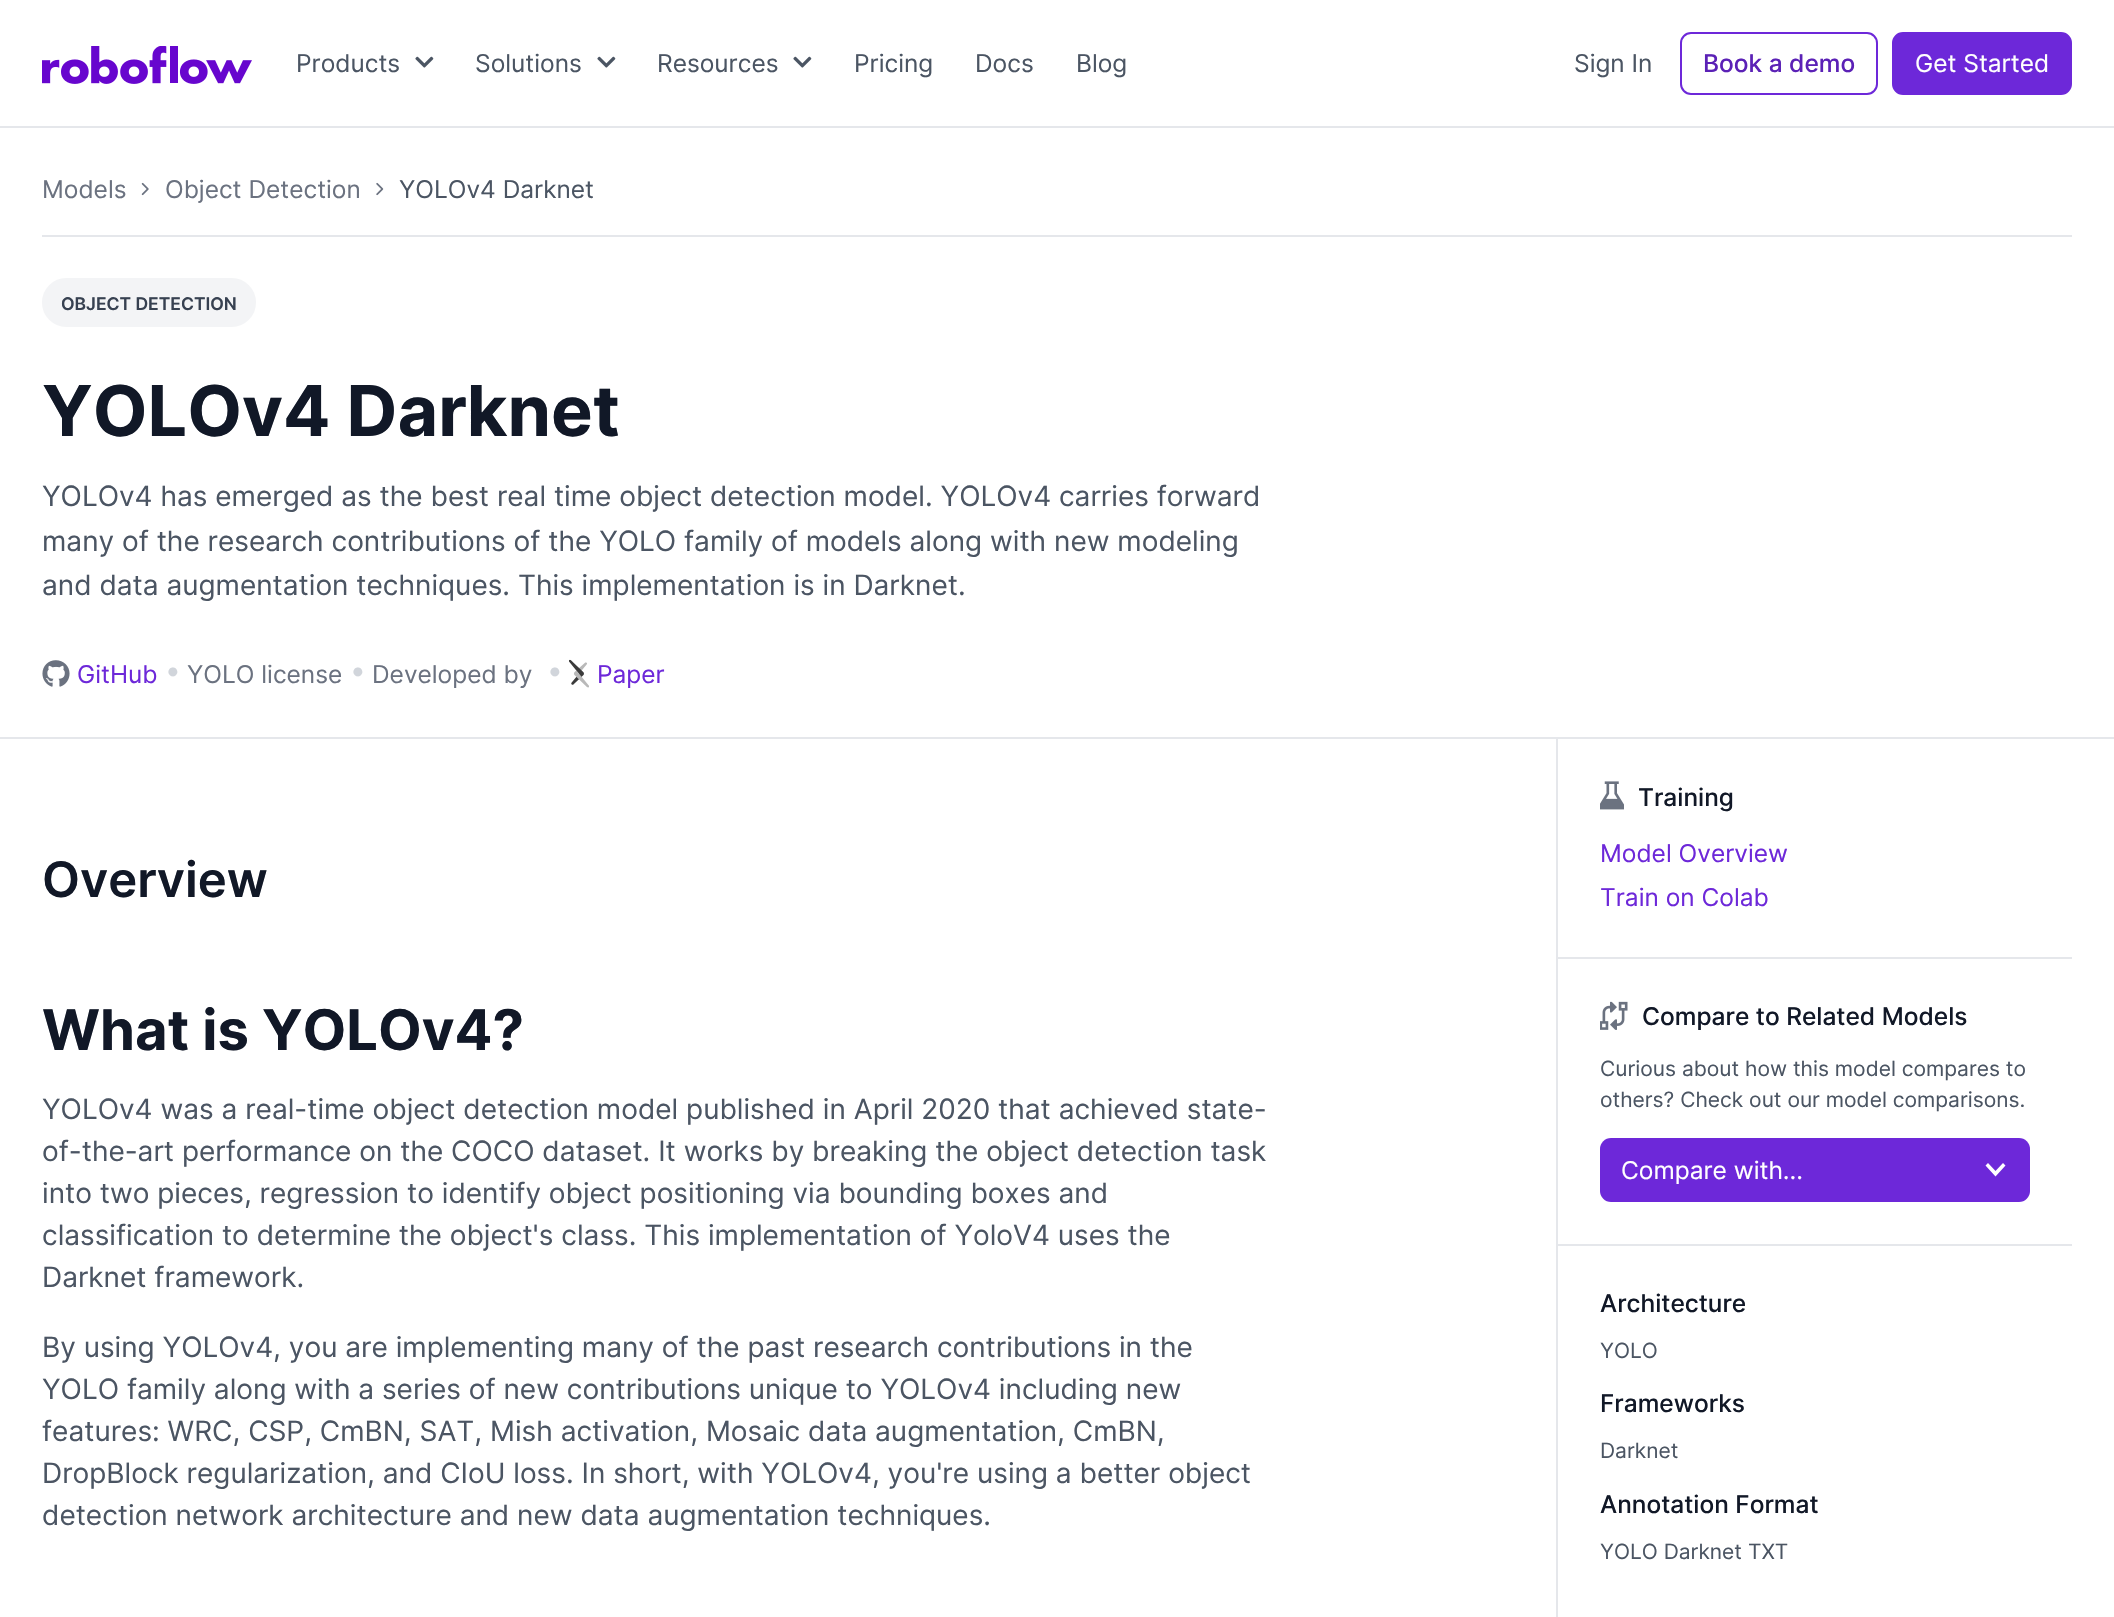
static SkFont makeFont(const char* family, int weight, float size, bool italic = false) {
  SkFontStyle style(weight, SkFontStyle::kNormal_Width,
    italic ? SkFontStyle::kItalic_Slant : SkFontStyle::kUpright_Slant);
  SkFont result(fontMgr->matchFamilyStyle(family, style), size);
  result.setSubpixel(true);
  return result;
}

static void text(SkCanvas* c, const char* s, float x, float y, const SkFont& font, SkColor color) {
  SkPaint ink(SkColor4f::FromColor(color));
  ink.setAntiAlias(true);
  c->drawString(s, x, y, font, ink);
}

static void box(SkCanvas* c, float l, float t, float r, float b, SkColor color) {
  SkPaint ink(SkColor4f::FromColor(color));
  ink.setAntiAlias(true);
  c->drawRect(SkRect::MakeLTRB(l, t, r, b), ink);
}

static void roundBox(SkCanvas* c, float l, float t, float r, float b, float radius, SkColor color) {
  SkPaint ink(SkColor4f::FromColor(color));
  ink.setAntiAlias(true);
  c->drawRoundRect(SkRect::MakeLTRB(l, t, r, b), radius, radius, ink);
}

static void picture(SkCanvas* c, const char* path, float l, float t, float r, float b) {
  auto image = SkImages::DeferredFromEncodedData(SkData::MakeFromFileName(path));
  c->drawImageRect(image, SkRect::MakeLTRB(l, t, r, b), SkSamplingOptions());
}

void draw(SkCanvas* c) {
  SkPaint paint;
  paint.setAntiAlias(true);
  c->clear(0xffffffff);
  box(c, 0, 126, 2114, 128, 0xffe5e7eb);
  picture(c, "img_01.png", 42, 46, 252, 84);
  SkFont face1 = makeFont("Inter", 400, 24.5f);
  text(c, "Products", 296, 72, face1, 0xff4b5563);
  picture(c, "img_02.png", 415, 56, 434, 68);
  text(c, "Solutions", 475, 72, face1, 0xff4b5563);
  picture(c, "img_02.png", 597, 56, 616, 68);
  text(c, "Resources", 657, 72, face1, 0xff4b5563);
  picture(c, "img_02.png", 793, 56, 812, 68);
  text(c, "Pricing", 854, 72, face1, 0xff4b5563);
  text(c, "Docs", 975, 72, face1, 0xff4b5563);
  text(c, "Blog", 1076, 72, face1, 0xff4b5563);
  text(c, "Sign In", 1574, 72, face1, 0xff4b5563);
  paint.setStyle(SkPaint::kStroke_Style);
  paint.setStrokeWidth(2);
  paint.setColor(0xff6d28d9);
  c->drawRoundRect(SkRect::MakeLTRB(1681, 33, 1877, 94), 10, 10, paint);
  SkFont face2 = makeFont("Inter", 500, 24.5f);
  text(c, "Book a demo", 1703, 72, face2, 0xff5b21b6);
  paint.setStyle(SkPaint::kFill_Style);
  c->drawRoundRect(SkRect::MakeLTRB(1893, 33, 2071, 94), 10, 10, paint);
  paint.setStyle(SkPaint::kStroke_Style);
  c->drawRoundRect(SkRect::MakeLTRB(1893, 33, 2071, 94), 10, 10, paint);
  text(c, "Get Started", 1915, 72, face1, 0xffffffff);
  box(c, 42, 235, 2072, 237, 0xffe5e7eb);
  text(c, "Models", 42, 198, face1, 0xff6b7280);
  picture(c, "img_03.png", 141, 182, 149, 196);
  text(c, "Object Detection", 165, 198, face1, 0xff6b7280);
  picture(c, "img_04.png", 376, 182, 384, 196);
  text(c, "YOLOv4 Darknet", 399, 198, face1, 0xff4b5563);
  box(c, 0, 737, 2114, 739, 0xffe5e7eb);
  paint.setStyle(SkPaint::kFill_Style);
  paint.setColor(0xfff3f4f6);
  c->drawRoundRect(SkRect::MakeLTRB(43, 279, 255, 326), 23.5f, 23.5f, paint);
  paint.setStyle(SkPaint::kStroke_Style);
  c->drawRoundRect(SkRect::MakeLTRB(43, 279, 255, 326), 23.5f, 23.5f, paint);
  SkFont face3 = makeFont("Inter", 600, 17.5f);
  text(c, "OBJECT DETECTION", 61, 310, face3, 0xff374151);
  SkFont face4 = makeFont("Inter", 700, 70);
  text(c, "YOLOv4 Darknet", 42, 436, face4, 0xff111827);
  SkFont face5 = makeFont("Inter", 400, 28);
  text(c, "YOLOv4 has emerged as the best real time object detection model. YOLOv4 carries forward", 42, 506, face5, 0xff4b5563);
  text(c, "many of the research contributions of the YOLO family of models along with new modeling", 42, 551, face5, 0xff4b5563);
  text(c, "and data augmentation techniques. This implementation is in Darknet.", 42, 595, face5, 0xff4b5563);
  picture(c, "img_05.png", 42, 660, 70, 687);
  text(c, "GitHub", 77, 683, face1, 0xff6d28d9);
  text(c, "•", 165, 680, face5, 0xffd1d5db);
  text(c, "YOLO license", 187, 683, face1, 0xff6b7280);
  text(c, "•", 350, 680, face5, 0xffd1d5db);
  text(c, "Developed by", 372, 683, face1, 0xff6b7280);
  text(c, "•", 547, 680, face5, 0xffd1d5db);
  picture(c, "img_06.png", 569, 659, 589, 688);
  text(c, "Paper", 597, 683, face1, 0xff6d28d9);
  SkFont face6 = makeFont("Inter", 600, 49);
  text(c, "Overview", 42, 897, face6, 0xff111827);
  SkFont face7 = makeFont("Inter", 700, 56);
  text(c, "What is YOLOv4?", 42, 1050, face7, 0xff111827);
  text(c, "YOLOv4 was a real-time object detection model published in April 2020 that achieved state-", 42, 1119, face5, 0xff4b5563);
  text(c, "of-the-art performance on the COCO dataset. It works by breaking the object detection task", 42, 1161, face5, 0xff4b5563);
  text(c, "into two pieces, regression to identify object positioning via bounding boxes and", 42, 1203, face5, 0xff4b5563);
  text(c, "classification to determine the object's class. This implementation of YoloV4 uses the", 42, 1245, face5, 0xff4b5563);
  text(c, "Darknet framework.", 42, 1287, face5, 0xff4b5563);
  text(c, "By using YOLOv4, you are implementing many of the past research contributions in the", 42, 1357, face5, 0xff4b5563);
  text(c, "YOLO family along with a series of new contributions unique to YOLOv4 including new", 42, 1399, face5, 0xff4b5563);
  text(c, "features: WRC, CSP, CmBN, SAT, Mish activation, Mosaic data augmentation, CmBN,", 42, 1441, face5, 0xff4b5563);
  text(c, "DropBlock regularization, and CIoU loss. In short, with YOLOv4, you're using a better object", 42, 1483, face5, 0xff4b5563);
  text(c, "detection network architecture and new data augmentation techniques.", 42, 1525, face5, 0xff4b5563);
  box(c, 1556, 739, 1558, 1617, 0xffe5e7eb);
  picture(c, "img_07.png", 1600, 781, 1624, 810);
  text(c, "Training", 1638, 806, face2, 0xff111827);
  text(c, "Model Overview", 1600, 862, face1, 0xff6d28d9);
  text(c, "Train on Colab", 1600, 906, face1, 0xff6d28d9);
  box(c, 1558, 957, 2072, 959, 0xffe5e7eb);
  picture(c, "img_08.png", 1600, 1001, 1628, 1030);
  text(c, "Compare to Related Models", 1642, 1025, face2, 0xff111827);
  SkFont face8 = makeFont("Inter", 400, 21);
  text(c, "Curious about how this model compares to", 1600, 1076, face8, 0xff4b5563);
  text(c, "others? Check out our model comparisons.", 1600, 1107, face8, 0xff4b5563);
  roundBox(c, 1600, 1138, 2030, 1202, 11, 0xff6d28d9);
  text(c, "Compare with...", 1621, 1179, face1, 0xffffffff);
  paint.setStyle(SkPaint::kFill_Style);
  paint.setColor(0xffffffff);
  c->drawPath(SkPathBuilder().moveTo(2003, 1163).lineTo(1995.5f, 1171).lineTo(1988, 1163).lineTo(1985.5f, 1165.5f).lineTo(1995.5f, 1176.5f).lineTo(2005.5f, 1165.5f).close().detach(), paint);
  box(c, 1558, 1244, 2072, 1246, 0xffe5e7eb);
  text(c, "Architecture", 1600, 1312, face2, 0xff111827);
  text(c, "YOLO", 1600, 1358, face8, 0xff4b5563);
  text(c, "Frameworks", 1600, 1412, face2, 0xff111827);
  text(c, "Darknet", 1600, 1458, face8, 0xff4b5563);
  text(c, "Annotation Format", 1600, 1513, face2, 0xff111827);
  text(c, "YOLO Darknet TXT", 1600, 1559, face8, 0xff4b5563);
}
